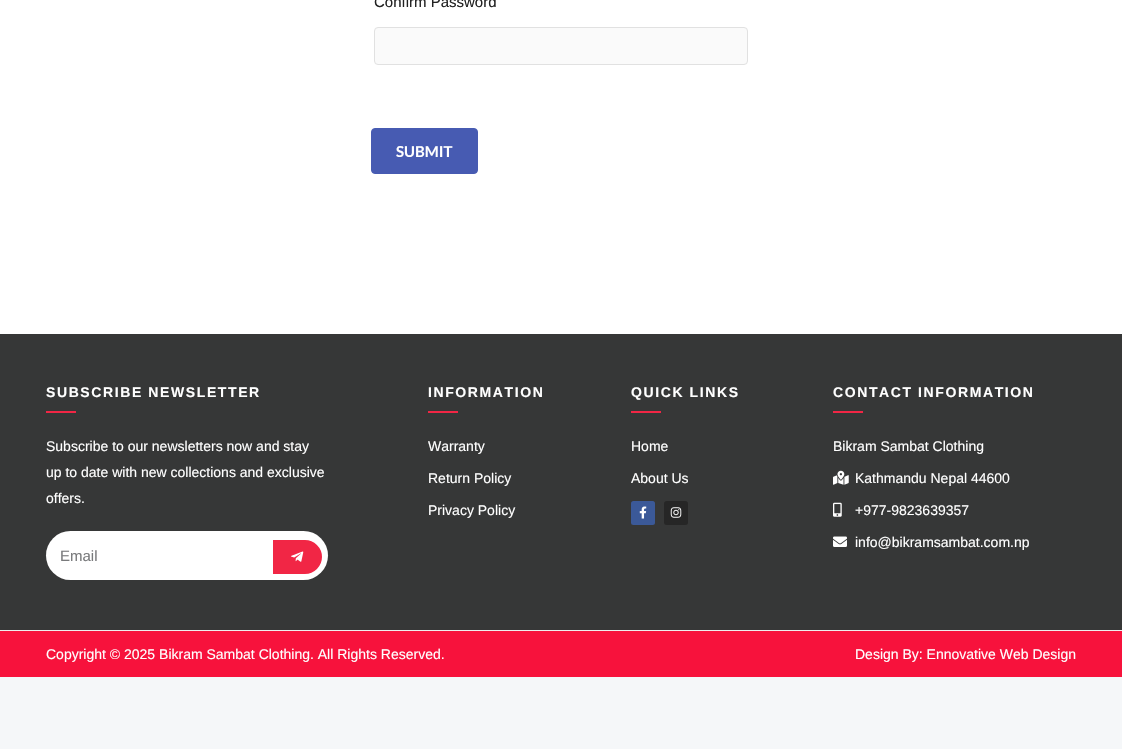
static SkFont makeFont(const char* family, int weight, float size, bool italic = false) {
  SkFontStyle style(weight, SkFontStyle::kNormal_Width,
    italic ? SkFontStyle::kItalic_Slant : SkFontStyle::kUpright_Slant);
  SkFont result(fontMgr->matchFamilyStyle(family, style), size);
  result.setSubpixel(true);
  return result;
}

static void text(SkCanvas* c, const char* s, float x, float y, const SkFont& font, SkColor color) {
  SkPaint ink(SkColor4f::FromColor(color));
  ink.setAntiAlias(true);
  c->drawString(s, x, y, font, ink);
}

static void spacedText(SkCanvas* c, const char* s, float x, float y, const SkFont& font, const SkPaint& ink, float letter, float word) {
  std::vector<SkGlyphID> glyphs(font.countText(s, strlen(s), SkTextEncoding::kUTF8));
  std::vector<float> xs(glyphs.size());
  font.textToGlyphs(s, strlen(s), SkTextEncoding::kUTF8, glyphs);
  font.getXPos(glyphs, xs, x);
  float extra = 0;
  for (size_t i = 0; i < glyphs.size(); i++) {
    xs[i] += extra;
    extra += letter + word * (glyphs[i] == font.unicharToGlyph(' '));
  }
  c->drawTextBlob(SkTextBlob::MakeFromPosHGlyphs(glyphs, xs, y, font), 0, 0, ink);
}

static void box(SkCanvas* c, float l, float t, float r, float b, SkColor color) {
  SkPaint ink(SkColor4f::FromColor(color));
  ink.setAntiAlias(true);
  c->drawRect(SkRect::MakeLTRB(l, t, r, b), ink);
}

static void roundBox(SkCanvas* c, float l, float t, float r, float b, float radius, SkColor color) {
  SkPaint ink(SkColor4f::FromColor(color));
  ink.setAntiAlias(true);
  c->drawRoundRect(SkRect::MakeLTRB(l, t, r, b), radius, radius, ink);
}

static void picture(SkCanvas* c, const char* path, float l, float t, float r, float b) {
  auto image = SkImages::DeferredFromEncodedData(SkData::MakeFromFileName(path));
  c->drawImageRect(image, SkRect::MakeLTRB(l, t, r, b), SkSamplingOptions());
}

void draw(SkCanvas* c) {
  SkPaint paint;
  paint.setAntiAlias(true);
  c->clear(0xfff5f7f9);
  box(c, 0, 0, 1122, 334, 0xffffffff);
  SkFont face1 = makeFont("Liberation Sans", 400, 15);
  text(c, "Confirm Password", 374, 7, face1, 0xff222222);
  paint.setColor(0xfffafafa);
  c->drawRoundRect(SkRect::MakeLTRB(374.5f, 27.5f, 747.5f, 64.5f), 3.5f, 3.5f, paint);
  paint.setStyle(SkPaint::kStroke_Style);
  paint.setStrokeWidth(1);
  paint.setColor(0xffe1e1e1);
  c->drawRoundRect(SkRect::MakeLTRB(374.5f, 27.5f, 747.5f, 64.5f), 3.5f, 3.5f, paint);
  paint.setStyle(SkPaint::kFill_Style);
  paint.setColor(0xff475bb2);
  c->drawRoundRect(SkRect::MakeLTRB(371.5f, 128.5f, 477.5f, 173.5f), 3.5f, 3.5f, paint);
  paint.setStyle(SkPaint::kStroke_Style);
  c->drawRoundRect(SkRect::MakeLTRB(371.5f, 128.5f, 477.5f, 173.5f), 3.5f, 3.5f, paint);
  SkFont face2 = makeFont("Lato", 700, 15);
  text(c, "SUBMIT", 396, 157, face2, 0xffffffff);
  box(c, 0, 334, 1122, 630, 0xff363737);
  SkFont face3 = makeFont("Liberation Sans", 700, 14);
  paint.setStyle(SkPaint::kFill_Style);
  paint.setColor(0xffffffff);
  spacedText(c, "SUBSCRIBE NEWSLETTER", 46, 397, face3, paint, 1.6f, 0);
  box(c, 46, 411, 76, 413, 0xfff12645);
  SkFont face4 = makeFont("Liberation Sans", 400, 14);
  text(c, "Subscribe to our newsletters now and stay", 46, 451, face4, 0xffffffff);
  text(c, "up to date with new collections and exclusive", 46, 477, face4, 0xffffffff);
  text(c, "offers.", 46, 503, face4, 0xffffffff);
  roundBox(c, 46, 531, 328, 580, 24.5f, 0xffffffff);
  text(c, "Email", 60, 561, face1, 0xff797a7c);
  paint.setColor(0xfff12645);
  c->drawPath(SkPathBuilder().moveTo(271.5f, 538.5f).lineTo(305, 538.5f).cubicTo(315, 538.5f, 323.5f, 547, 323.5f, 557).cubicTo(323.5f, 567, 315, 575.5f, 305, 575.5f).lineTo(271.5f, 575.5f).close().detach(), paint);
  paint.setStyle(SkPaint::kStroke_Style);
  paint.setStrokeWidth(3);
  paint.setColor(0xffffffff);
  c->drawPath(SkPathBuilder().moveTo(271.5f, 538.5f).lineTo(305, 538.5f).cubicTo(315, 538.5f, 323.5f, 547, 323.5f, 557).cubicTo(323.5f, 567, 315, 575.5f, 305, 575.5f).lineTo(271.5f, 575.5f).close().detach(), paint);
  picture(c, "img_01.png", 291, 551, 304, 562);
  paint.setStyle(SkPaint::kFill_Style);
  spacedText(c, "INFORMATION", 428, 397, face3, paint, 1.6f, 0);
  box(c, 428, 411, 458, 413, 0xfff12645);
  text(c, "Warranty", 428, 451, face4, 0xffffffff);
  text(c, "Return Policy", 428, 483, face4, 0xffffffff);
  text(c, "Privacy Policy", 428, 515, face4, 0xffffffff);
  spacedText(c, "QUICK LINKS", 631, 397, face3, paint, 1.6f, 0);
  box(c, 631, 411, 661, 413, 0xfff12645);
  text(c, "Home", 631, 451, face4, 0xffffffff);
  text(c, "About Us", 631, 483, face4, 0xffffffff);
  roundBox(c, 631, 501, 655, 525, 2.5f, 0xff3b5998);
  picture(c, "img_02.png", 639, 506, 647, 519);
  roundBox(c, 664, 501, 688, 525, 2.5f, 0xff262626);
  picture(c, "img_03.png", 670, 507, 682, 518);
  spacedText(c, "CONTACT INFORMATION", 833, 397, face3, paint, 1.6f, 0);
  box(c, 833, 411, 863, 413, 0xfff12645);
  text(c, "Bikram Sambat Clothing", 833, 451, face4, 0xffffffff);
  picture(c, "img_04.png", 833, 470, 849, 485);
  text(c, "Kathmandu Nepal 44600", 855, 483, face4, 0xffffffff);
  picture(c, "img_05.png", 833, 502, 842, 517);
  text(c, "+977-9823639357", 855, 515, face4, 0xffffffff);
  picture(c, "img_06.png", 833, 536, 847, 547);
  text(c, "info@bikramsambat.com.np", 855, 547, face4, 0xffffffff);
  box(c, 0, 631, 1122, 677, 0xfff7123c);
  box(c, 0, 630, 1122, 631, 0xffeeeeee);
  text(c, "Copyright © 2025 Bikram Sambat Clothing. All Rights Reserved.", 46, 659, face4, 0xffffffff);
  text(c, "Design By: Ennovative Web Design", 855, 659, face4, 0xffffffff);
}
